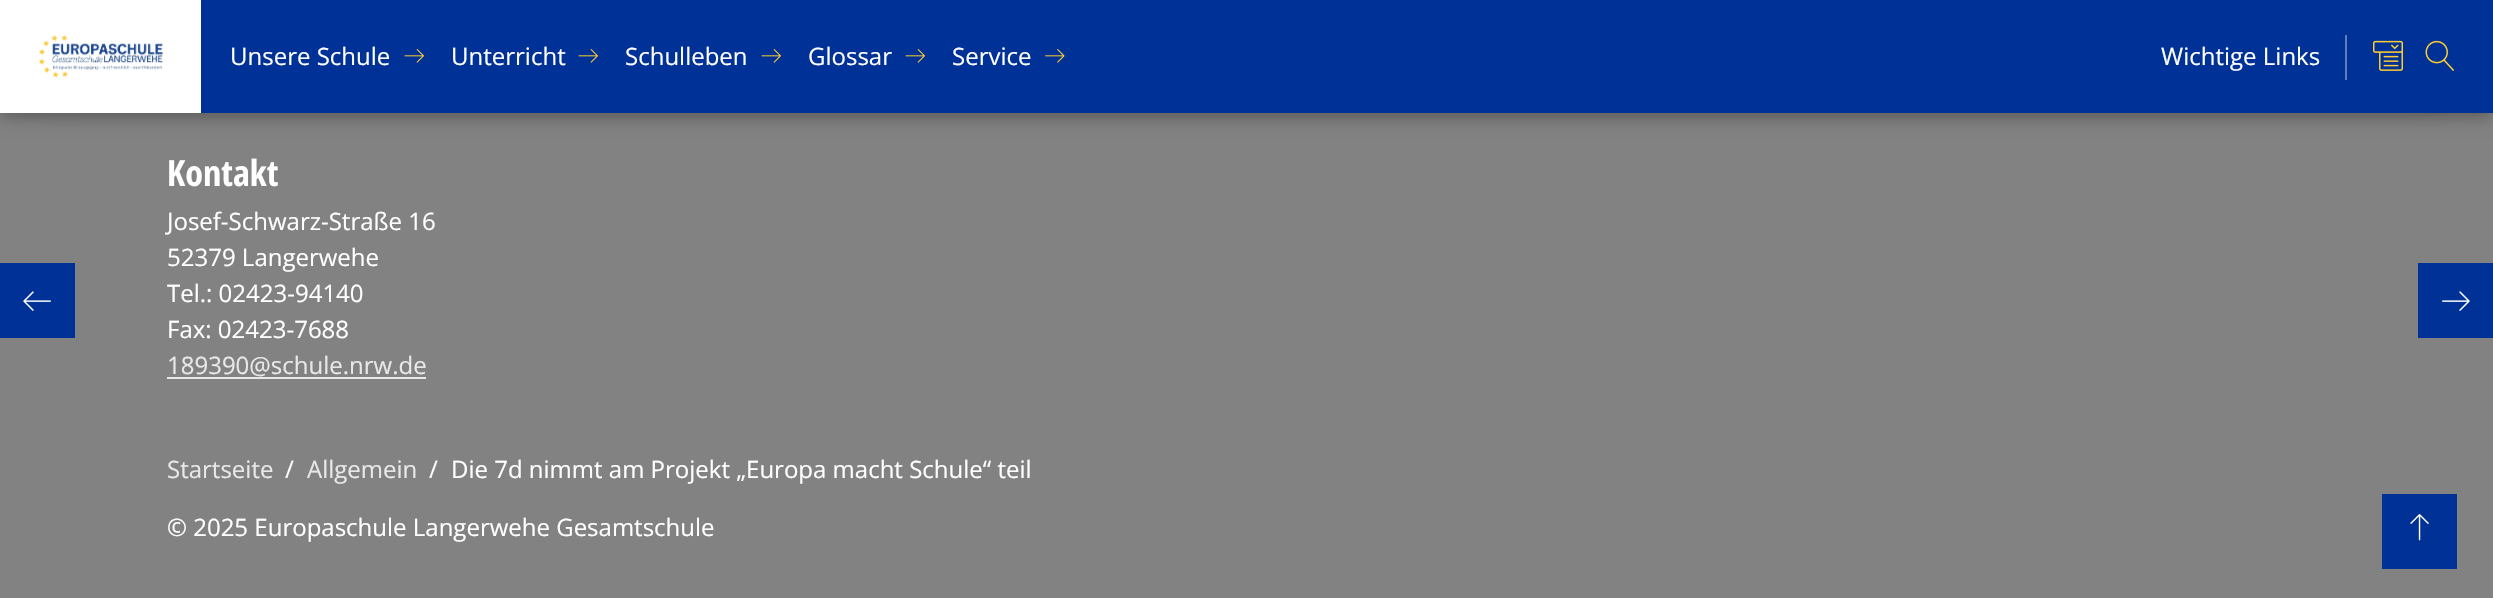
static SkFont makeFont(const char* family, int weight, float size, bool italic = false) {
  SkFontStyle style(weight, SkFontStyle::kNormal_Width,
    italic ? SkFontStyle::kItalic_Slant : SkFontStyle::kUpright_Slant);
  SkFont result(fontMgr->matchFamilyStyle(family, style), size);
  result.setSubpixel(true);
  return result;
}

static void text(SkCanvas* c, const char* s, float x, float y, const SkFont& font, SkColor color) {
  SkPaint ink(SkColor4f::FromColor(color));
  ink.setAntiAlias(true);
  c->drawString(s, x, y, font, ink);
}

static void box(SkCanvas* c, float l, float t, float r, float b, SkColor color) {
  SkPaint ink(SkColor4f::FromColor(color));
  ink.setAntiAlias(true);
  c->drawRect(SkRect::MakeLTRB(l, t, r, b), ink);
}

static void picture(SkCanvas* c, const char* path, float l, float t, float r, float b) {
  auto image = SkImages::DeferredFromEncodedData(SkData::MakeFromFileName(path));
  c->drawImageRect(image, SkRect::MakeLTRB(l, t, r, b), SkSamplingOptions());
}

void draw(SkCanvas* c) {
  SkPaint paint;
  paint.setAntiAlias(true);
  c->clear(0xff828282);
  paint.setColor(0xbf000000);
  paint.setMaskFilter(SkMaskFilter::MakeBlur(kNormal_SkBlurStyle, 28.5f));
  c->drawRect(SkRect::MakeLTRB(48, -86, 2445, 59), paint);
  paint.setMaskFilter(nullptr);
  box(c, 0, 263, 75, 338, 0xff003196);
  picture(c, "img_01.png", 23, 291, 51, 311);
  box(c, 2418, 263, 2493, 338, 0xff003196);
  picture(c, "img_02.png", 2442, 291, 2470, 311);
  paint.setColor(0x4d000000);
  paint.setMaskFilter(SkMaskFilter::MakeBlur(kNormal_SkBlurStyle, 7.5f));
  c->drawRect(SkRect::MakeLTRB(0, 5, 2493, 117), paint);
  paint.setMaskFilter(nullptr);
  box(c, 201, 0, 2493, 113, 0xff003196);
  box(c, 0, 0, 201, 113, 0xffffffff);
  picture(c, "img_03.png", 39, 34, 164, 79);
  SkFont face1 = makeFont("Open Sans", 400, 24);
  text(c, "Unsere Schule", 230, 65, face1, 0xffffffff);
  picture(c, "img_04.png", 404, 49, 424, 63);
  text(c, "Unterricht", 451, 65, face1, 0xffffffff);
  picture(c, "img_04.png", 578, 49, 598, 63);
  text(c, "Schulleben", 625, 65, face1, 0xffffffff);
  picture(c, "img_04.png", 761, 49, 781, 63);
  text(c, "Glossar", 808, 65, face1, 0xffffffff);
  picture(c, "img_04.png", 905, 49, 925, 63);
  text(c, "Service", 952, 65, face1, 0xffffffff);
  picture(c, "img_05.png", 1045, 49, 1065, 63);
  text(c, "Wichtige Links", 2161, 65, face1, 0xffffffff);
  box(c, 2345, 35, 2347, 80, 0xff617fbe);
  picture(c, "img_06.png", 2373, 40, 2403, 71);
  picture(c, "img_07.png", 2425, 40, 2454, 71);
  SkFont face2 = makeFont("Open Sans Condensed", 700, 36);
  text(c, "Kontakt", 167, 186, face2, 0xffffffff);
  text(c, "Josef-Schwarz-Straße 16", 167, 230, face1, 0xffffffff);
  text(c, "52379 Langerwehe", 167, 266, face1, 0xffffffff);
  text(c, "Tel.: 02423-94140", 167, 302, face1, 0xffffffff);
  text(c, "Fax: 02423-7688", 167, 338, face1, 0xffffffff);
  text(c, "189390@schule.nrw.de", 167, 374, face1, 0xffe8e8e8);
  box(c, 167, 377, 426, 379, 0xffe8e8e8);
  text(c, "Startseite", 167, 478, face1, 0xffe8e8e8);
  text(c, "/", 285, 478, face1, 0xffffffff);
  text(c, "Allgemein", 307, 478, face1, 0xffe8e8e8);
  text(c, "/", 429, 478, face1, 0xffffffff);
  text(c, "Die 7d nimmt am Projekt „Europa macht Schule“ teil", 451, 478, face1, 0xffffffff);
  text(c, "© 2025 Europaschule Langerwehe Gesamtschule", 167, 536, face1, 0xffffffff);
  box(c, 2382, 494, 2457, 569, 0xff003196);
  picture(c, "img_08.png", 2410, 514, 2429, 541);
}
